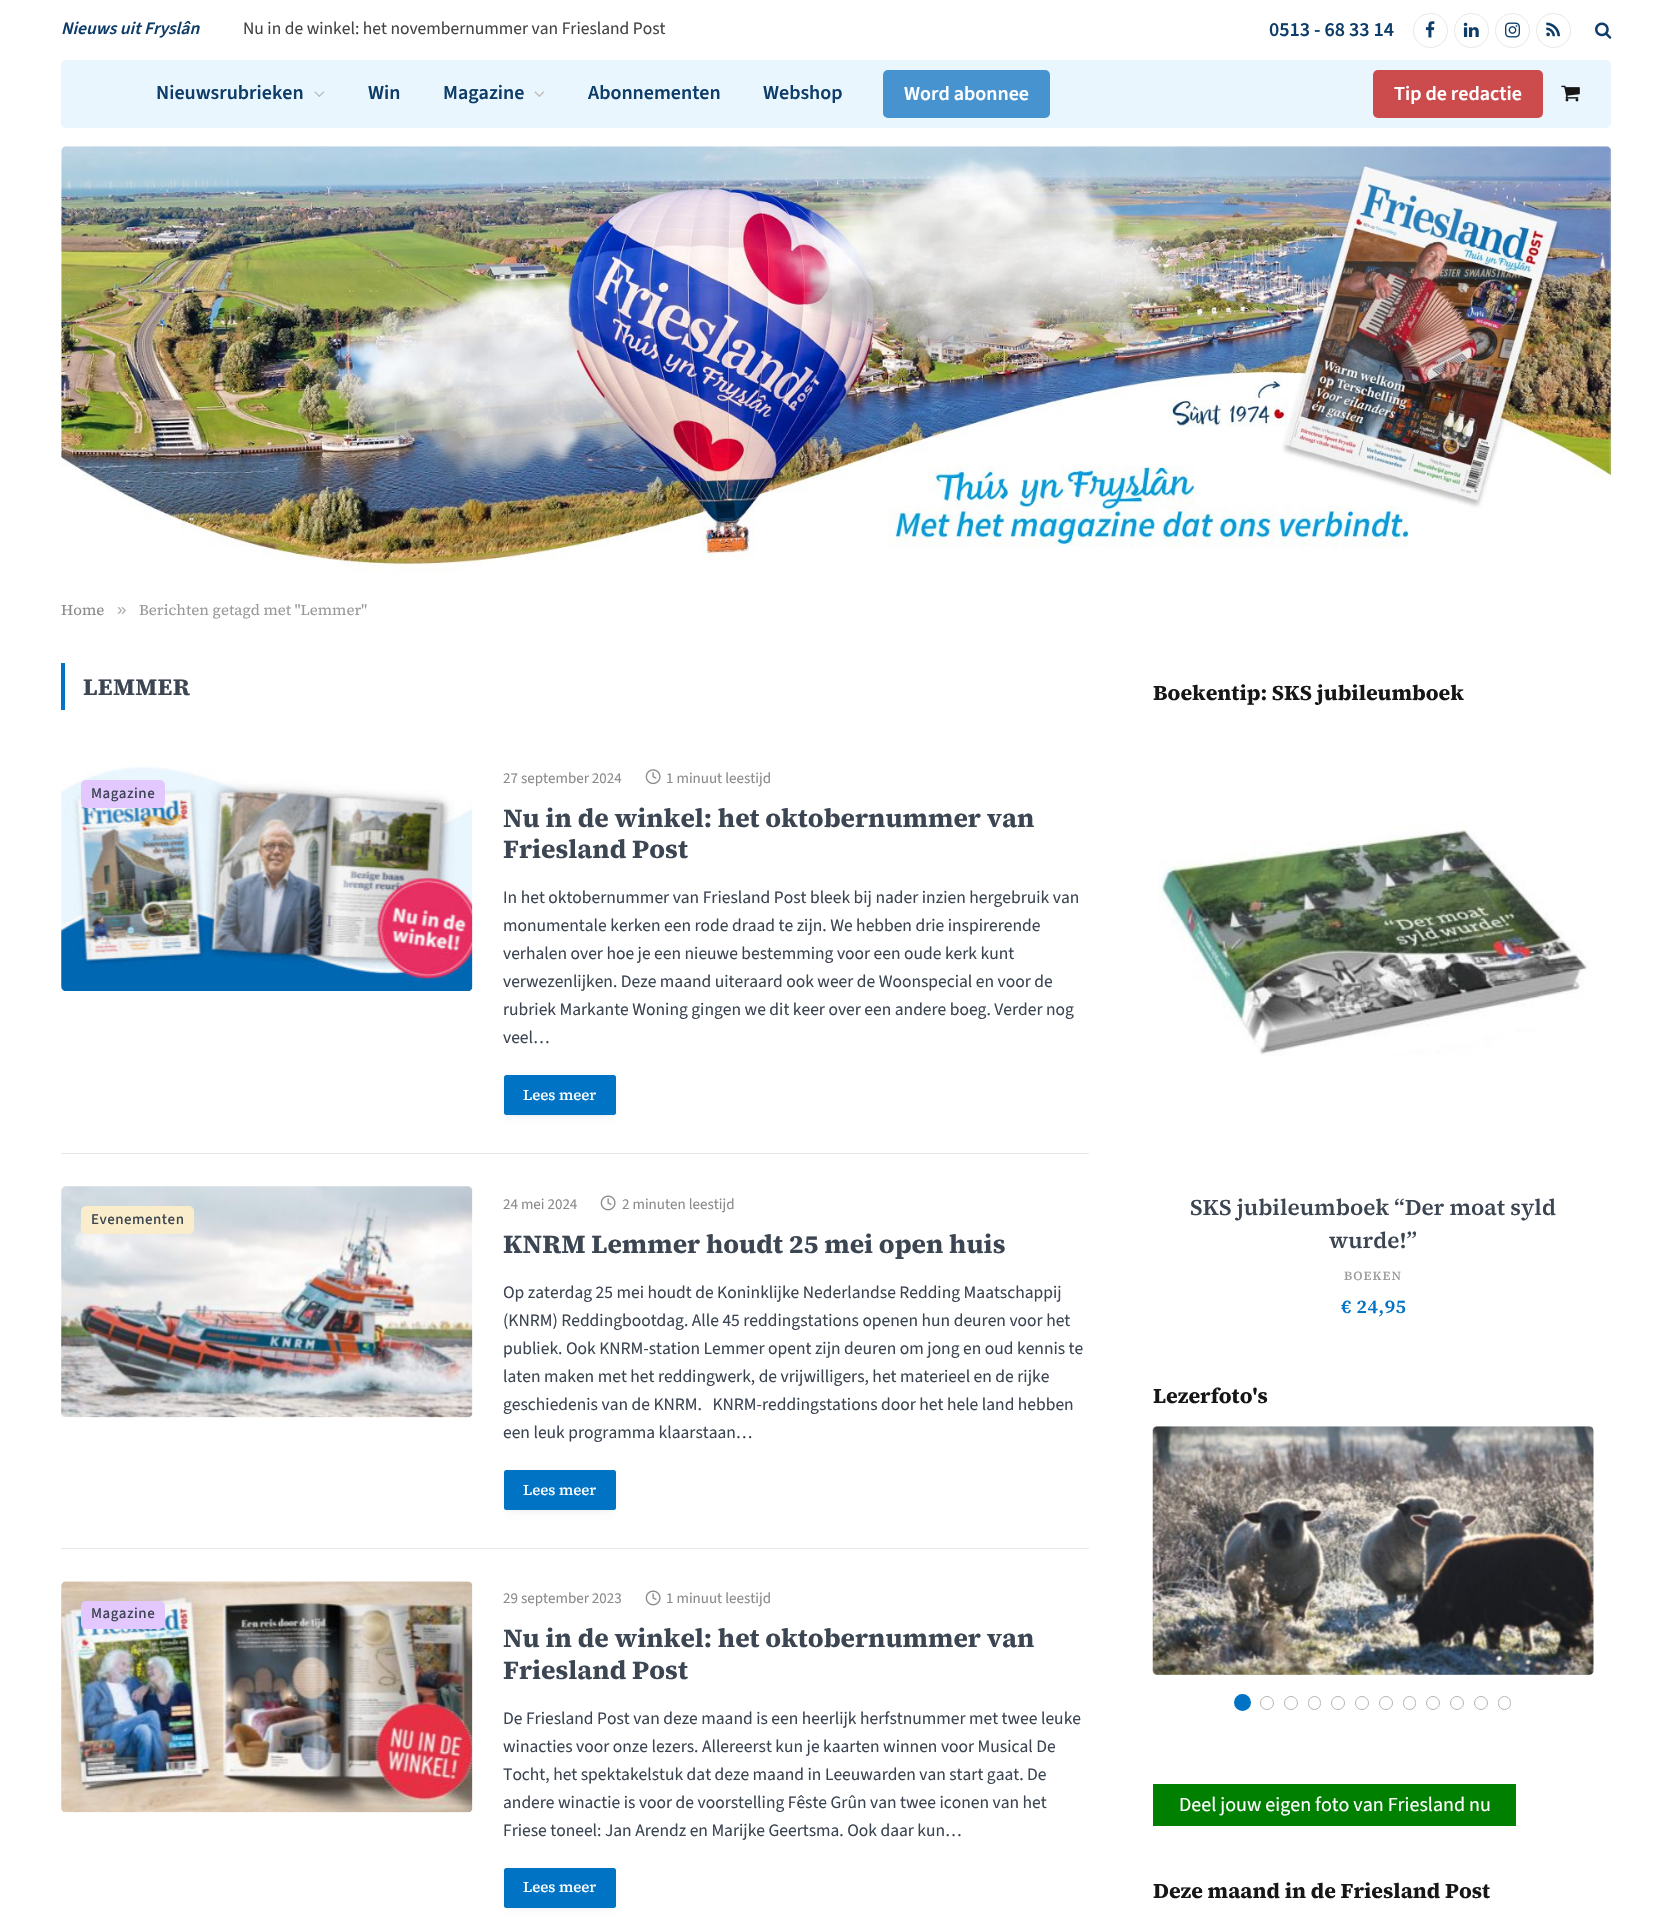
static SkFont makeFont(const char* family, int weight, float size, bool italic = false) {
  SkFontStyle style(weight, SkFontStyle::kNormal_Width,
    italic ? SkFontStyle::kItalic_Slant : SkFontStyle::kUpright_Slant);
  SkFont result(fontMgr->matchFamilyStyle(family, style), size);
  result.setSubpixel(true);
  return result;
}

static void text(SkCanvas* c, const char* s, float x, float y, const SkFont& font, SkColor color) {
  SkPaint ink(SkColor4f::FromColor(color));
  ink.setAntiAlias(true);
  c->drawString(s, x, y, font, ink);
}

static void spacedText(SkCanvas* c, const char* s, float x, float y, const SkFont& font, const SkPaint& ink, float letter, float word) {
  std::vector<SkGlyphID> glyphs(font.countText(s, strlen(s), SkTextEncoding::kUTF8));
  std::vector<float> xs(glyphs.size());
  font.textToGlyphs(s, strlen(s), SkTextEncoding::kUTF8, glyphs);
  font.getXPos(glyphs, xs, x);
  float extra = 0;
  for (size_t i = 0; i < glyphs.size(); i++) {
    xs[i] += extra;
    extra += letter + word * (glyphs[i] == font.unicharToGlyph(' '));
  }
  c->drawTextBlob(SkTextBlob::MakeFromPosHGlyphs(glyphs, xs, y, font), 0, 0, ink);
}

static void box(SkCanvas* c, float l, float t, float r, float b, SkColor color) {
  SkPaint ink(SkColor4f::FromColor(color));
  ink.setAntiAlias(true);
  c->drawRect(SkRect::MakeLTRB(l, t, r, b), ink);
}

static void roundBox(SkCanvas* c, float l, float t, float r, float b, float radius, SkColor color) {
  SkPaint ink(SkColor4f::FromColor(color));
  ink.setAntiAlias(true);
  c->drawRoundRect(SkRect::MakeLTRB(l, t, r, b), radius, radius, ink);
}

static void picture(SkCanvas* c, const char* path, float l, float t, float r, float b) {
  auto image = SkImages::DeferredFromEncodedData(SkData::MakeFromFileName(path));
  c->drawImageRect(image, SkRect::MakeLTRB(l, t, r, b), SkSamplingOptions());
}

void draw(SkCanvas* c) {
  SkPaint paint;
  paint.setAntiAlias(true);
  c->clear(0xffffffff);
  SkFont face1 = makeFont("Source Sans 3", 600, 17.5f, true);
  text(c, "Nieuws uit Fryslân", 61, 34, face1, 0xff0e3d69);
  SkFont face2 = makeFont("Source Sans 3", 400, 17.5f);
  text(c, "Nu in de winkel: het novembernummer van Friesland Post", 243, 34, face2, 0xff444444);
  SkFont face3 = makeFont("Source Sans 3", 600, 20);
  text(c, "0513 - 68 33 14", 1269, 36, face3, 0xff0e3d69);
  paint.setStyle(SkPaint::kStroke_Style);
  paint.setStrokeWidth(1);
  paint.setColor(0xffe8e8e8);
  c->drawCircle(1430.5f, 30.5f, 17, paint);
  picture(c, "img_01.png", 1425, 21, 1435, 38);
  c->drawCircle(1471.5f, 30.5f, 17, paint);
  picture(c, "img_02.png", 1463, 22, 1479, 37);
  c->drawCircle(1512.5f, 30.5f, 17, paint);
  picture(c, "img_03.png", 1505, 22, 1520, 38);
  c->drawCircle(1553.5f, 30.5f, 17, paint);
  picture(c, "img_04.png", 1546, 22, 1560, 37);
  picture(c, "img_05.png", 1595, 22, 1612, 39);
  roundBox(c, 61, 60, 1611, 128, 5, 0xffe9f6fe);
  text(c, "Nieuwsrubrieken", 156, 99, face3, 0xff0e3d69);
  picture(c, "img_06.png", 314, 91, 325, 97);
  text(c, "Win", 368, 99, face3, 0xff0e3d69);
  text(c, "Magazine", 443, 99, face3, 0xff0e3d69);
  picture(c, "img_06.png", 534, 91, 545, 97);
  text(c, "Abonnementen", 588, 99, face3, 0xff0e3d69);
  text(c, "Webshop", 763, 99, face3, 0xff0e3d69);
  roundBox(c, 883, 70, 1050, 118, 5, 0xb30068bc);
  text(c, "Word abonnee", 904, 100, face3, 0xffffffff);
  roundBox(c, 1373, 70, 1543, 118, 5, 0xb3bf0303);
  text(c, "Tip de redactie", 1394, 100, face3, 0xffffffff);
  picture(c, "img_07.png", 1561, 85, 1580, 102);
  picture(c, "img_08.png", 61, 146, 1612, 573);
  SkFont face4 = makeFont("Source Serif 4", 400, 15);
  text(c, "Home", 61, 615, face4, 0xff8a8a8a);
  SkFont face5 = makeFont("Liberation Sans", 400, 17);
  text(c, "»", 117, 615, face5, 0xffadadad);
  text(c, "Berichten getagd met \"Lemmer\"", 139, 615, face4, 0xff999999);
  box(c, 61, 663, 65, 710, 0xff0073c4);
  SkFont face6 = makeFont("Source Serif 4", 700, 23.75f);
  paint.setStyle(SkPaint::kFill_Style);
  paint.setColor(0xff3c4552);
  spacedText(c, "LEMMER", 83, 695, face6, paint, 0.25f, 0);
  picture(c, "img_09.png", 61, 766, 473, 991);
  roundBox(c, 81, 780, 165, 808, 5, 0xffe3c7ff);
  SkFont face7 = makeFont("Source Sans 3", 500, 15);
  spacedText(c, "Magazine", 91, 798, face7, paint, 0.5f, 0);
  SkFont face8 = makeFont("Source Sans 3", 400, 15);
  text(c, "27 september 2024", 503, 783, face8, 0xff8a8a8a);
  picture(c, "img_10.png", 645, 769, 661, 785);
  text(c, "1 minuut leestijd", 666, 783, face8, 0xff8a8a8a);
  SkFont face9 = makeFont("Source Serif 4", 700, 26.25f);
  text(c, "Nu in de winkel: het oktobernummer van", 503, 827, face9, 0xff3c4552);
  text(c, "Friesland Post", 503, 858, face9, 0xff3c4552);
  text(c, "In het oktobernummer van Friesland Post bleek bij nader inzien hergebruik van", 503, 903, face2, 0xff3c4552);
  text(c, "monumentale kerken een rode draad te zijn. We hebben drie inspirerende", 503, 931, face2, 0xff3c4552);
  text(c, "verhalen over hoe je een nieuwe bestemming voor een oude kerk kunt", 503, 959, face2, 0xff3c4552);
  text(c, "verwezenlijken. Deze maand uiteraard ook weer de Woonspecial en voor de", 503, 987, face2, 0xff3c4552);
  text(c, "rubriek Markante Woning gingen we dit keer over een andere boeg. Verder nog", 503, 1015, face2, 0xff3c4552);
  text(c, "veel…", 503, 1043, face2, 0xff3c4552);
  paint.setColor(0x29000000);
  paint.setMaskFilter(SkMaskFilter::MakeBlur(kNormal_SkBlurStyle, 4.5f));
  c->drawRect(SkRect::MakeLTRB(509, 1083, 611, 1113), paint);
  paint.setMaskFilter(nullptr);
  roundBox(c, 504, 1075, 616, 1115, 2.5f, 0xff0073c4);
  SkFont face10 = makeFont("Source Serif 4", 500, 15);
  text(c, "Lees meer", 523, 1100, face10, 0xffffffff);
  box(c, 61, 1153, 1089, 1154, 0xffe8e8e8);
  picture(c, "img_11.png", 61, 1186, 473, 1418);
  roundBox(c, 81, 1206, 194, 1234, 5, 0xfffaedcb);
  paint.setColor(0xff3c4552);
  spacedText(c, "Evenementen", 91, 1224, face7, paint, 0.5f, 0);
  text(c, "24 mei 2024", 503, 1209, face8, 0xff8a8a8a);
  picture(c, "img_12.png", 600, 1195, 616, 1211);
  text(c, "2 minuten leestijd", 622, 1209, face8, 0xff8a8a8a);
  text(c, "KNRM Lemmer houdt 25 mei open huis", 503, 1253, face9, 0xff3c4552);
  text(c, "Op zaterdag 25 mei houdt de Koninklijke Nederlandse Redding Maatschappij", 503, 1298, face2, 0xff3c4552);
  text(c, "(KNRM) Reddingbootdag. Alle 45 reddingstations openen hun deuren voor het", 503, 1326, face2, 0xff3c4552);
  text(c, "publiek. Ook KNRM-station Lemmer opent zijn deuren om jong en oud kennis te", 503, 1354, face2, 0xff3c4552);
  text(c, "laten maken met het reddingwerk, de vrijwilligers, het materieel en de rijke", 503, 1382, face2, 0xff3c4552);
  text(c, "geschiedenis van de KNRM.   KNRM-reddingstations door het hele land hebben", 503, 1410, face2, 0xff3c4552);
  text(c, "een leuk programma klaarstaan…", 503, 1438, face2, 0xff3c4552);
  paint.setColor(0x29000000);
  paint.setMaskFilter(SkMaskFilter::MakeBlur(kNormal_SkBlurStyle, 4.5f));
  c->drawRect(SkRect::MakeLTRB(509, 1478, 611, 1508), paint);
  paint.setMaskFilter(nullptr);
  roundBox(c, 504, 1470, 616, 1510, 2.5f, 0xff0073c4);
  text(c, "Lees meer", 523, 1495, face10, 0xffffffff);
  box(c, 61, 1548, 1089, 1549, 0xffe8e8e8);
  picture(c, "img_13.png", 61, 1581, 473, 1813);
  roundBox(c, 81, 1601, 165, 1629, 5, 0xffe3c7ff);
  paint.setColor(0xff3c4552);
  spacedText(c, "Magazine", 91, 1618, face7, paint, 0.5f, 0);
  text(c, "29 september 2023", 503, 1603, face8, 0xff8a8a8a);
  picture(c, "img_12.png", 645, 1590, 661, 1606);
  text(c, "1 minuut leestijd", 666, 1603, face8, 0xff8a8a8a);
  text(c, "Nu in de winkel: het oktobernummer van", 503, 1647, face9, 0xff3c4552);
  text(c, "Friesland Post", 503, 1679, face9, 0xff3c4552);
  text(c, "De Friesland Post van deze maand is een heerlijk herfstnummer met twee leuke", 503, 1724, face2, 0xff3c4552);
  text(c, "winacties voor onze lezers. Allereerst kun je kaarten winnen voor Musical De", 503, 1752, face2, 0xff3c4552);
  text(c, "Tocht, het spektakelstuk dat deze maand in Leeuwarden van start gaat. De", 503, 1780, face2, 0xff3c4552);
  text(c, "andere winactie is voor de voorstelling Fêste Grûn van twee iconen van het", 503, 1808, face2, 0xff3c4552);
  text(c, "Friese toneel: Jan Arendz en Marijke Geertsma. Ook daar kun…", 503, 1836, face2, 0xff3c4552);
  paint.setColor(0x29000000);
  paint.setMaskFilter(SkMaskFilter::MakeBlur(kNormal_SkBlurStyle, 4.5f));
  c->drawRect(SkRect::MakeLTRB(509, 1875, 611, 1905), paint);
  paint.setMaskFilter(nullptr);
  roundBox(c, 504, 1868, 616, 1908, 2.5f, 0xff0073c4);
  text(c, "Lees meer", 523, 1892, face10, 0xffffffff);
  SkFont face11 = makeFont("Source Serif 4", 700, 21.25f);
  text(c, "Boekentip: SKS jubileumboek", 1153, 700, face11, 0xff161616);
  picture(c, "img_14.png", 1158, 822, 1591, 1056);
  SkFont face12 = makeFont("Source Serif 4", 600, 22.5f);
  text(c, "SKS jubileumboek “Der moat syld", 1190, 1215, face12, 0xff3c4552);
  text(c, "wurde!”", 1329, 1248, face12, 0xff3c4552);
  SkFont face13 = makeFont("Source Serif 4", 500, 12.5f);
  paint.setColor(0xff999999);
  spacedText(c, "BOEKEN", 1344, 1280, face13, paint, 1, 0);
  SkFont face14 = makeFont("Source Serif 4", 600, 19);
  paint.setColor(0xff0073c4);
  spacedText(c, "€ 24,95", 1341, 1313, face14, paint, 0.5f, 0);
  text(c, "Lezerfoto's", 1153, 1403, face11, 0xff161616);
  picture(c, "img_15.png", 1152, 1426, 1594, 1675);
  c->drawCircle(1242.5f, 1702.5f, 7.5f, paint);
  paint.setStyle(SkPaint::kStroke_Style);
  paint.setStrokeWidth(2);
  c->drawCircle(1242.5f, 1702.5f, 7.5f, paint);
  paint.setStrokeWidth(1);
  paint.setColor(0xffb3b3b3);
  c->drawCircle(1267, 1703, 6.5f, paint);
  c->drawCircle(1291, 1703, 6.5f, paint);
  c->drawRoundRect(SkRect::MakeLTRB(1308.5f, 1696.5f, 1320.5f, 1709.5f), 6, 6, paint);
  c->drawCircle(1338, 1703, 6.5f, paint);
  c->drawCircle(1362, 1703, 6.5f, paint);
  c->drawCircle(1386, 1703, 6.5f, paint);
  c->drawRoundRect(SkRect::MakeLTRB(1403.5f, 1696.5f, 1415.5f, 1709.5f), 6, 6, paint);
  c->drawCircle(1433, 1703, 6.5f, paint);
  c->drawCircle(1457, 1703, 6.5f, paint);
  c->drawCircle(1481, 1703, 6.5f, paint);
  c->drawRoundRect(SkRect::MakeLTRB(1498.5f, 1696.5f, 1510.5f, 1709.5f), 6, 6, paint);
  box(c, 1153, 1784, 1516, 1826, 0xff008000);
  SkFont face15 = makeFont("Source Sans 3", 400, 20);
  text(c, "Deel jouw eigen foto van Friesland nu", 1179, 1811, face15, 0xffffffff);
  text(c, "Deze maand in de Friesland Post", 1153, 1898, face11, 0xff161616);
}
